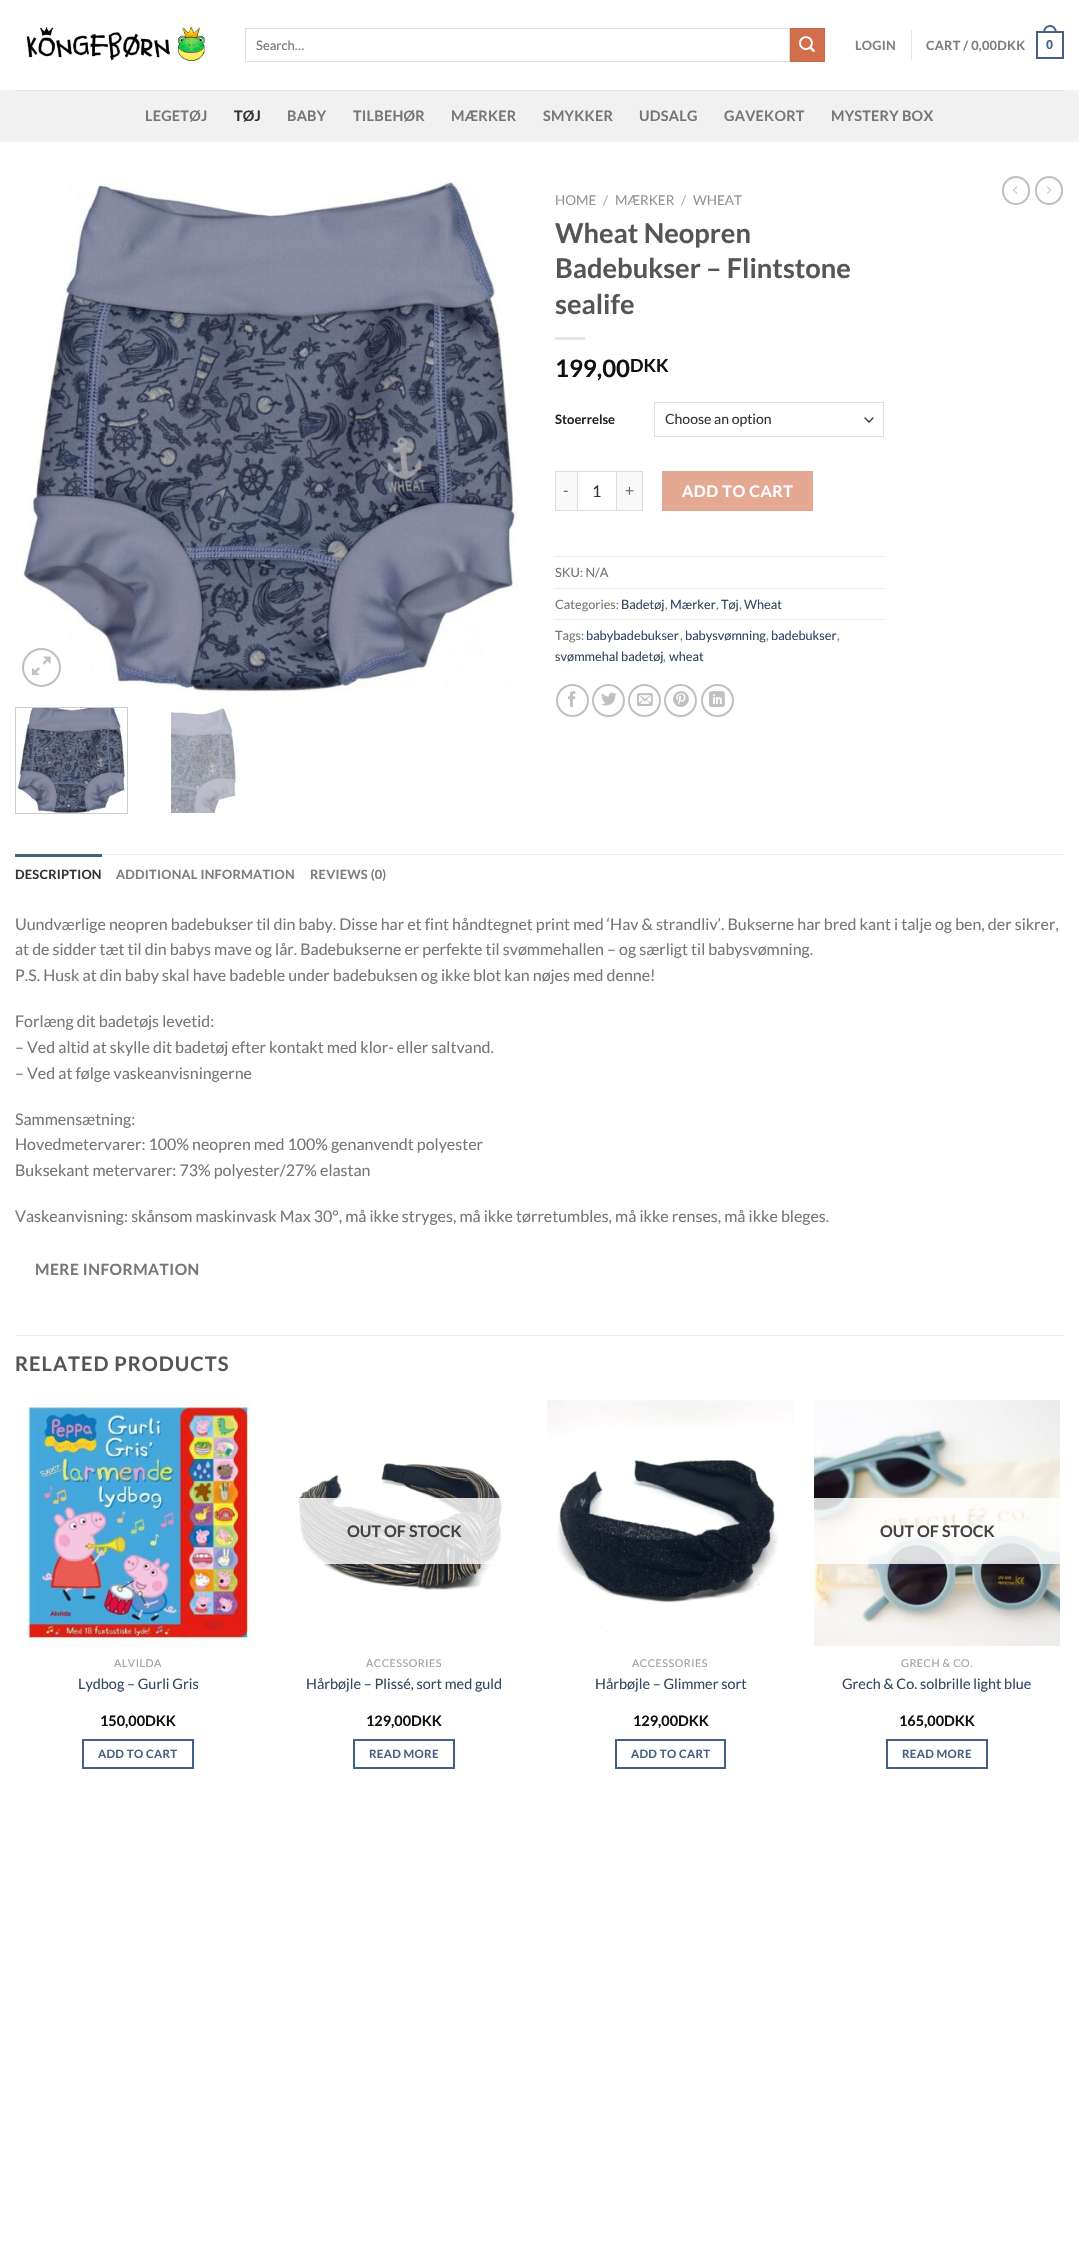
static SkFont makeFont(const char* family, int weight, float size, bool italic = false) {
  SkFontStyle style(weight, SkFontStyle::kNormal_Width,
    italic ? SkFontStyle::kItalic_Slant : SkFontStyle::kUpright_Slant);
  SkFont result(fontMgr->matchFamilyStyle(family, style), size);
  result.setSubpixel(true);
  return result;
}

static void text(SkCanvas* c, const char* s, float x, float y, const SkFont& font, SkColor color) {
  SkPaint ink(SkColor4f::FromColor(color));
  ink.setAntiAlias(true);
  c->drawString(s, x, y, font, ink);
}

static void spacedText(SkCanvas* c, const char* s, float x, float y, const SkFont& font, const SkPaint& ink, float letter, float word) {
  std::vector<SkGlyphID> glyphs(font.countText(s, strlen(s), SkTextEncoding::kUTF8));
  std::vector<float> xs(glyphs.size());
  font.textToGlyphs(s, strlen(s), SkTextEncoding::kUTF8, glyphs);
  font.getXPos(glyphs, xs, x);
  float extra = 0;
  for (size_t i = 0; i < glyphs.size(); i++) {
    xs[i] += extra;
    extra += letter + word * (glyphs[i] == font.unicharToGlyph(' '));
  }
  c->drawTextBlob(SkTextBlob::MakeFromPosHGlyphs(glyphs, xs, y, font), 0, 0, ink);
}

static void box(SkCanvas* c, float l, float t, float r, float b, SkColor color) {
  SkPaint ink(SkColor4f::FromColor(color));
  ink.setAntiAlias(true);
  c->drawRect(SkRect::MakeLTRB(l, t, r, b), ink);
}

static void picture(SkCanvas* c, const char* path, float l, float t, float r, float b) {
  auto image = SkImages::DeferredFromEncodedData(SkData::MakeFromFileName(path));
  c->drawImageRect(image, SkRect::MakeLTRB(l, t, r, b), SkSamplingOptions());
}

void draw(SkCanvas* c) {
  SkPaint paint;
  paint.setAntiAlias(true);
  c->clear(0xffffffff);
  picture(c, "img_01.png", 26, 27, 205, 61);
  paint.setStyle(SkPaint::kStroke_Style);
  paint.setStrokeWidth(1);
  paint.setColor(0xffdddddd);
  c->drawRect(SkRect::MakeLTRB(245.5f, 28.5f, 789.5f, 61.5f), paint);
  SkFont face1 = makeFont("Lato", 400, 13);
  text(c, "Search…", 256, 50, face1, 0xff777777);
  paint.setStyle(SkPaint::kFill_Style);
  paint.setColor(0xffd26e4b);
  c->drawRect(SkRect::MakeLTRB(790.5f, 28.5f, 824.5f, 61.5f), paint);
  paint.setStyle(SkPaint::kStroke_Style);
  paint.setColor(0xffc86947);
  c->drawRect(SkRect::MakeLTRB(790.5f, 28.5f, 824.5f, 61.5f), paint);
  picture(c, "img_02.png", 799, 36, 815, 52);
  SkFont face2 = makeFont("Lato", 700, 12.75f);
  paint.setStyle(SkPaint::kFill_Style);
  paint.setColor(0xff7d7d7d);
  spacedText(c, "LOGIN", 855, 50, face2, paint, 0.25f, 0);
  box(c, 911, 30, 912, 60, 0xffe6e6e6);
  spacedText(c, "CART / 0,00DKK", 926, 50, face2, paint, 0.25f, 0);
  paint.setStyle(SkPaint::kStroke_Style);
  paint.setStrokeWidth(2);
  paint.setColor(0xff446084);
  c->drawRect(SkRect::MakeLTRB(1037, 32, 1063, 58), paint);
  paint.setStyle(SkPaint::kFill_Style);
  c->drawPath(SkPathBuilder(SkPathFillType::kEvenOdd).moveTo(1050, 25).cubicTo(1054.5f, 25, 1057, 29, 1057, 33).lineTo(1043, 33).cubicTo(1043, 29, 1045.5f, 25, 1050, 25).close().moveTo(1050, 27).cubicTo(1053.5f, 27, 1055, 30, 1055, 33).lineTo(1045, 33).cubicTo(1045, 30, 1046.5f, 27, 1050, 27).close().detach(), paint);
  SkFont face3 = makeFont("Liberation Sans", 700, 12.75f);
  spacedText(c, "0", 1046, 49, face3, paint, 0.25f, 0);
  box(c, 0, 90, 1079, 142, 0xfff1f1f1);
  box(c, 15, 90, 1064, 91, 0xffe5e5e5);
  SkFont face4 = makeFont("Lato", 700, 14.4f);
  paint.setColor(0xff777777);
  spacedText(c, "LEGETØJ", 145, 121, face4, paint, 0.25f, 0);
  paint.setColor(0xff333333);
  spacedText(c, "TØJ", 234, 121, face4, paint, 0.25f, 0);
  paint.setColor(0xff777777);
  spacedText(c, "BABY", 287, 121, face4, paint, 0.25f, 0);
  spacedText(c, "TILBEHØR", 353, 121, face4, paint, 0.25f, 0);
  spacedText(c, "MÆRKER", 451, 121, face4, paint, 0.25f, 0);
  spacedText(c, "SMYKKER", 543, 121, face4, paint, 0.25f, 0);
  spacedText(c, "UDSALG", 639, 121, face4, paint, 0.25f, 0);
  spacedText(c, "GAVEKORT", 724, 121, face4, paint, 0.25f, 0);
  spacedText(c, "MYSTERY BOX", 831, 121, face4, paint, 0.25f, 0);
  picture(c, "img_03.png", 15, 182, 518, 692);
  paint.setStyle(SkPaint::kStroke_Style);
  paint.setColor(0xffc0c0c0);
  c->drawCircle(41.5f, 667.5f, 18.5f, paint);
  picture(c, "img_04.png", 32, 656, 51, 676);
  paint.setStrokeWidth(1);
  paint.setColor(0xffcccccc);
  c->drawRect(SkRect::MakeLTRB(15.5f, 707.5f, 127.5f, 813.5f), paint);
  picture(c, "img_05.png", 16, 708, 126, 813);
  picture(c, "img_06.png", 170, 708, 236, 813);
  SkFont face5 = makeFont("Lato", 400, 13.5f);
  text(c, "HOME", 555, 205, face5, 0xff949494);
  text(c, "/", 603, 205, face5, 0xffb2b2b2);
  text(c, "MÆRKER", 615, 205, face5, 0xff949494);
  text(c, "/", 681, 205, face5, 0xffb2b2b2);
  text(c, "WHEAT", 693, 205, face5, 0xff949494);
  SkFont face6 = makeFont("Lato", 700, 27.25f);
  text(c, "Wheat Neopren", 555, 243, face6, 0xff555555);
  text(c, "Badebukser – Flintstone", 555, 278, face6, 0xff555555);
  text(c, "sealife", 555, 314, face6, 0xff555555);
  box(c, 555, 337, 585, 340, 0xffe6e6e6);
  SkFont face7 = makeFont("Lato", 700, 24);
  text(c, "199,00", 555, 377, face7, 0xff111111);
  SkFont face8 = makeFont("Lato", 700, 18);
  text(c, "DKK", 630, 372, face8, 0xff111111);
  SkFont face9 = makeFont("Lato", 700, 13);
  text(c, "Stoerrelse", 555, 424, face9, 0xff222222);
  paint.setStrokeWidth(1.3f);
  paint.setStrokeCap(SkPaint::kRound_Cap);
  paint.setStrokeJoin(SkPaint::kRound_Join);
  paint.setColor(0xff333333);
  c->drawPath(SkPathBuilder().moveTo(865, 418).lineTo(869, 422).lineTo(873, 418).detach(), paint);
  paint.setStrokeWidth(1);
  paint.setStrokeCap(SkPaint::kButt_Cap);
  paint.setStrokeJoin(SkPaint::kMiter_Join);
  paint.setColor(0xffdddddd);
  c->drawRect(SkRect::MakeLTRB(654.5f, 402.5f, 883.5f, 436.5f), paint);
  SkFont face10 = makeFont("Lato", 400, 14);
  text(c, "Choose an option", 665, 424, face10, 0xff333333);
  box(c, 556, 472, 577, 510, 0xfff9f9f9);
  box(c, 555, 471, 577, 472, 0xffdddddd);
  box(c, 555, 510, 577, 511, 0xffdddddd);
  box(c, 555, 471, 556, 511, 0xffdddddd);
  SkFont face11 = makeFont("Lato", 400, 15.5f);
  paint.setStyle(SkPaint::kFill_Style);
  paint.setColor(0xff666666);
  spacedText(c, "-", 563, 496, face11, paint, 0.5f, 0);
  paint.setStyle(SkPaint::kStroke_Style);
  paint.setColor(0xffdddddd);
  c->drawRect(SkRect::MakeLTRB(577.5f, 471.5f, 616.5f, 510.5f), paint);
  SkFont face12 = makeFont("Lato", 400, 16);
  text(c, "1", 592, 497, face12, 0xff333333);
  box(c, 617, 472, 642, 510, 0xfff9f9f9);
  box(c, 617, 471, 643, 472, 0xffdddddd);
  box(c, 642, 471, 643, 511, 0xffdddddd);
  box(c, 617, 510, 643, 511, 0xffdddddd);
  paint.setStyle(SkPaint::kFill_Style);
  paint.setColor(0xff666666);
  spacedText(c, "+", 625, 496, face11, paint, 0.5f, 0);
  paint.setColor(0xffe4a893);
  c->drawRect(SkRect::MakeLTRB(662.5f, 471.5f, 812.5f, 510.5f), paint);
  paint.setStyle(SkPaint::kStroke_Style);
  paint.setColor(0xffdea591);
  c->drawRect(SkRect::MakeLTRB(662.5f, 471.5f, 812.5f, 510.5f), paint);
  SkFont face13 = makeFont("Lato", 700, 16);
  paint.setStyle(SkPaint::kFill_Style);
  paint.setColor(0xffffffff);
  spacedText(c, "ADD TO CART", 682, 497, face13, paint, 0.5f, 0);
  paint.setStyle(SkPaint::kStroke_Style);
  paint.setColor(0xffdddddd);
  paint.setPathEffect(SkDashPathEffect::Make({{1, 1}}, 0));
  c->drawPath(SkPathBuilder().moveTo(555, 556.5f).lineTo(884, 556.5f).detach(), paint);
  paint.setPathEffect(nullptr);
  SkFont face14 = makeFont("Lato", 400, 12.75f);
  text(c, "SKU: N/A", 555, 577, face14, 0xff777777);
  paint.setPathEffect(SkDashPathEffect::Make({{1, 1}}, 0));
  c->drawPath(SkPathBuilder().moveTo(555, 588.5f).lineTo(884, 588.5f).detach(), paint);
  paint.setPathEffect(nullptr);
  text(c, "Categories:", 555, 609, face14, 0xff777777);
  text(c, "Badetøj", 621, 609, face14, 0xff334862);
  text(c, ",", 665, 609, face14, 0xff777777);
  text(c, "Mærker", 670, 609, face14, 0xff334862);
  text(c, ",", 716, 609, face14, 0xff777777);
  text(c, "Tøj", 721, 609, face14, 0xff334862);
  text(c, ",", 739, 609, face14, 0xff777777);
  text(c, "Wheat", 744, 609, face14, 0xff334862);
  paint.setPathEffect(SkDashPathEffect::Make({{1, 1}}, 0));
  c->drawPath(SkPathBuilder().moveTo(555, 619.5f).lineTo(884, 619.5f).detach(), paint);
  paint.setPathEffect(nullptr);
  text(c, "Tags:", 555, 640, face14, 0xff777777);
  text(c, "babybadebukser", 586, 640, face14, 0xff334862);
  text(c, ",", 680, 640, face14, 0xff777777);
  text(c, "babysvømning", 685, 640, face14, 0xff334862);
  text(c, ",", 766, 640, face14, 0xff777777);
  text(c, "badebukser", 771, 640, face14, 0xff334862);
  text(c, ",", 837, 640, face14, 0xff777777);
  text(c, "svømmehal badetøj", 555, 661, face14, 0xff334862);
  text(c, ",", 663, 661, face14, 0xff777777);
  text(c, "wheat", 669, 661, face14, 0xff334862);
  paint.setStrokeWidth(2);
  paint.setColor(0xffc0c0c0);
  c->drawCircle(572.5f, 700.5f, 15.5f, paint);
  picture(c, "img_07.png", 568, 691, 576, 707);
  c->drawCircle(608.5f, 700.5f, 15.5f, paint);
  picture(c, "img_08.png", 601, 692, 617, 706);
  c->drawCircle(644.5f, 700.5f, 15.5f, paint);
  picture(c, "img_09.png", 637, 693, 653, 706);
  c->drawCircle(680.5f, 700.5f, 15.5f, paint);
  picture(c, "img_10.png", 673, 691, 689, 707);
  c->drawCircle(717.5f, 700.5f, 15.5f, paint);
  picture(c, "img_11.png", 709, 691, 725, 707);
  c->drawRoundRect(SkRect::MakeLTRB(1003, 177, 1029, 204), 13, 13, paint);
  picture(c, "img_12.png", 1013, 186, 1018, 194);
  c->drawRoundRect(SkRect::MakeLTRB(1036, 177, 1062, 204), 13, 13, paint);
  picture(c, "img_13.png", 1047, 186, 1051, 194);
  box(c, 102, 854, 1064, 855, 0xffececec);
  box(c, 15, 854, 102, 857, 0xff446084);
  paint.setStyle(SkPaint::kFill_Style);
  paint.setColor(0xff333333);
  spacedText(c, "DESCRIPTION", 15, 879, face2, paint, 0.25f, 0);
  paint.setColor(0xff7d7d7d);
  spacedText(c, "ADDITIONAL INFORMATION", 116, 879, face2, paint, 0.25f, 0);
  spacedText(c, "REVIEWS (0)", 310, 879, face2, paint, 0.25f, 0);
  text(c, "Uundværlige neopren badebukser til din baby. Disse har et fint håndtegnet print med ‘Hav & strandliv’. Bukserne har bred kant i talje og ben, der sikrer,", 15, 930, face12, 0xff777777);
  text(c, "at de sidder tæt til din babys mave og lår. Badebukserne er perfekte til svømmehallen – og særligt til babysvømning.", 15, 955, face12, 0xff777777);
  text(c, "P.S. Husk at din baby skal have badeble under badebuksen og ikke blot kan nøjes med denne!", 15, 981, face12, 0xff777777);
  text(c, "Forlæng dit badetøjs levetid:", 15, 1027, face12, 0xff777777);
  text(c, "– Ved altid at skylle dit badetøj efter kontakt med klor- eller saltvand.", 15, 1053, face12, 0xff777777);
  text(c, "– Ved at følge vaskeanvisningerne", 15, 1079, face12, 0xff777777);
  text(c, "Sammensætning:", 15, 1125, face12, 0xff777777);
  text(c, "Hovedmetervarer: 100% neopren med 100% genanvendt polyester", 15, 1150, face12, 0xff777777);
  text(c, "Buksekant metervarer: 73% polyester/27% elastan", 15, 1176, face12, 0xff777777);
  text(c, "Vaskeanvisning: skånsom maskinvask Max 30°, må ikke stryges, må ikke tørretumbles, må ikke renses, må ikke bleges.", 15, 1222, face12, 0xff777777);
  SkFont face15 = makeFont("Lato", 700, 15.5f);
  paint.setColor(0xff777777);
  spacedText(c, "MERE INFORMATION", 35, 1275, face15, paint, 0.5f, 0);
  box(c, 15, 1335, 1064, 1336, 0xffececec);
  SkFont face16 = makeFont("Lato", 700, 20);
  paint.setColor(0xff555555);
  spacedText(c, "RELATED PRODUCTS", 15, 1371, face16, paint, 1, 0);
  picture(c, "img_14.png", 27, 1400, 252, 1646);
  SkFont face17 = makeFont("Lato", 400, 10.75f);
  paint.setColor(0xffa0a0a0);
  spacedText(c, "ALVILDA", 114, 1667, face17, paint, 0.5f, 0);
  SkFont face18 = makeFont("Lato", 400, 14.4f);
  text(c, "Lydbog – Gurli Gris", 78, 1689, face18, 0xff334862);
  text(c, "150,00DKK", 100, 1726, face4, 0xff111111);
  paint.setStyle(SkPaint::kStroke_Style);
  paint.setColor(0xff446084);
  c->drawRect(SkRect::MakeLTRB(83, 1740, 193, 1768), paint);
  SkFont face19 = makeFont("Lato", 700, 11.5f);
  paint.setStyle(SkPaint::kFill_Style);
  spacedText(c, "ADD TO CART", 98, 1758, face19, paint, 0.3f, 0);
  picture(c, "img_15.png", 298, 1463, 512, 1590);
  box(c, 298, 1498, 512, 1564, 0xcfffffff);
  text(c, "OUT OF STOCK", 347, 1537, face13, 0xff444444);
  paint.setColor(0xffa0a0a0);
  spacedText(c, "ACCESSORIES", 366, 1667, face17, paint, 0.5f, 0);
  text(c, "Hårbøjle – Plissé, sort med guld", 306, 1689, face18, 0xff334862);
  text(c, "129,00DKK", 366, 1726, face4, 0xff111111);
  paint.setStyle(SkPaint::kStroke_Style);
  paint.setColor(0xff446084);
  c->drawRect(SkRect::MakeLTRB(354, 1740, 454, 1768), paint);
  paint.setStyle(SkPaint::kFill_Style);
  spacedText(c, "READ MORE", 369, 1758, face19, paint, 0.3f, 0);
  picture(c, "img_16.png", 547, 1400, 794, 1633);
  paint.setColor(0xffa0a0a0);
  spacedText(c, "ACCESSORIES", 632, 1667, face17, paint, 0.5f, 0);
  text(c, "Hårbøjle – Glimmer sort", 595, 1689, face18, 0xff334862);
  text(c, "129,00DKK", 633, 1726, face4, 0xff111111);
  paint.setStyle(SkPaint::kStroke_Style);
  paint.setColor(0xff446084);
  c->drawRect(SkRect::MakeLTRB(616, 1740, 725, 1768), paint);
  paint.setStyle(SkPaint::kFill_Style);
  spacedText(c, "ADD TO CART", 631, 1758, face19, paint, 0.3f, 0);
  picture(c, "img_17.png", 814, 1400, 1060, 1646);
  box(c, 814, 1498, 1060, 1564, 0xcfffffff);
  text(c, "OUT OF STOCK", 880, 1537, face13, 0xff444444);
  paint.setColor(0xffa0a0a0);
  spacedText(c, "GRECH & CO.", 901, 1667, face17, paint, 0.5f, 0);
  text(c, "Grech & Co. solbrille light blue", 842, 1689, face18, 0xff334862);
  text(c, "165,00DKK", 899, 1726, face4, 0xff111111);
  paint.setStyle(SkPaint::kStroke_Style);
  paint.setColor(0xff446084);
  c->drawRect(SkRect::MakeLTRB(887, 1740, 987, 1768), paint);
  paint.setStyle(SkPaint::kFill_Style);
  spacedText(c, "READ MORE", 902, 1758, face19, paint, 0.3f, 0);
}
